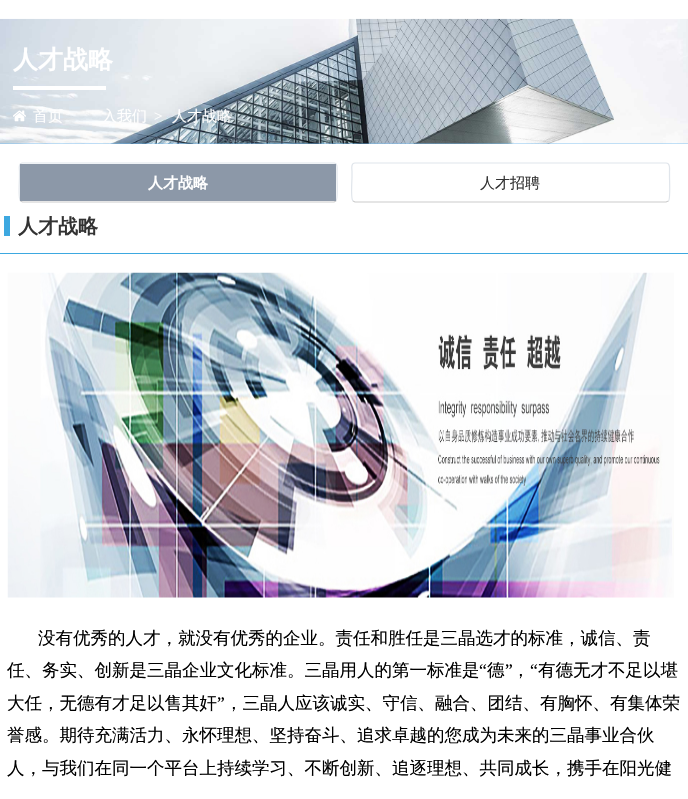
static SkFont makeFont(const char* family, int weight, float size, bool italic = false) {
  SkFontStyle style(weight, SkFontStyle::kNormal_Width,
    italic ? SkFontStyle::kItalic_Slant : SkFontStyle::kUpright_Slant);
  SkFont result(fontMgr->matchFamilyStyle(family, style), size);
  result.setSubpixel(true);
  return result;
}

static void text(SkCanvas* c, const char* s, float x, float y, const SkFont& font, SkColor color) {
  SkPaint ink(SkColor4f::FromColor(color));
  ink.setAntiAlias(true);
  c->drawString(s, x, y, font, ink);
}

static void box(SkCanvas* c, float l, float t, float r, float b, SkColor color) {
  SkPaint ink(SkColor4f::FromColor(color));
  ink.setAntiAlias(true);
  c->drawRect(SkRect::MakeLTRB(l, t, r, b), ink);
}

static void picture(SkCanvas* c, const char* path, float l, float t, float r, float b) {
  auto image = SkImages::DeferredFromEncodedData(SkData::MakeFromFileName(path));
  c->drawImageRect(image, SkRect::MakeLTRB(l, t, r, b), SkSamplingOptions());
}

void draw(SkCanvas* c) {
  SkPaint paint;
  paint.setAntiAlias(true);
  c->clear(0xffffffff);
  box(c, 0, 143, 688, 144, 0xff74bbf1);
  picture(c, "img_01.png", 0, 18, 688, 144);
  SkFont face1 = makeFont("WenQuanYi Zen Hei", 700, 25);
  text(c, "人才战略", 13, 68, face1, 0xffffffff);
  box(c, 13, 86, 106, 90, 0xffffffff);
  picture(c, "img_02.png", 13, 110, 26, 122);
  SkFont face2 = makeFont("WenQuanYi Zen Hei", 500, 15);
  text(c, "首页", 33, 121, face2, 0xffffffff);
  text(c, "入我们", 102, 121, face2, 0xffffffff);
  SkFont face3 = makeFont("Liberation Serif", 400, 15);
  text(c, ">", 154, 121, face3, 0xffffffff);
  text(c, "人才战略", 172, 121, face2, 0xffffffff);
  paint.setStyle(SkPaint::kStroke_Style);
  paint.setStrokeWidth(1.2f);
  paint.setColor(0xffcccccc);
  c->drawPath(SkPathBuilder().moveTo(336, 201).lineTo(334, 202).lineTo(22.5f, 202).lineTo(20.5f, 201).detach(), paint);
  paint.setColor(0xffe0e5eb);
  c->drawPath(SkPathBuilder().moveTo(20.5f, 201).cubicTo(18, 199, 19.5f, 181, 19.5f, 177).lineTo(19.5f, 171.5f).cubicTo(19.5f, 169.5f, 18, 163, 22.5f, 163).lineTo(334, 163).cubicTo(338, 163, 337, 169.5f, 337, 171.5f).lineTo(337, 177).cubicTo(337, 181, 338, 199, 336, 201).detach(), paint);
  box(c, 20, 164, 336, 201, 0xff8c98a8);
  SkFont face4 = makeFont("WenQuanYi Zen Hei", 700, 15);
  text(c, "人才战略", 148, 188, face4, 0xffffffff);
  paint.setColor(0xffcccccc);
  c->drawPath(SkPathBuilder().moveTo(668.5f, 201).lineTo(666, 202).lineTo(355, 202).lineTo(353, 201).detach(), paint);
  paint.setColor(0xffe0e5eb);
  c->drawPath(SkPathBuilder().moveTo(353, 201).cubicTo(350.5f, 199, 352, 181, 352, 177).lineTo(352, 171.5f).cubicTo(352, 169.5f, 350.5f, 163, 355, 163).lineTo(666, 163).cubicTo(670.5f, 163, 669.5f, 169.5f, 669.5f, 171.5f).lineTo(669.5f, 177).cubicTo(669.5f, 181, 670.5f, 199, 668.5f, 201).detach(), paint);
  text(c, "人才招聘", 480, 188, face2, 0xff333333);
  box(c, 0, 253, 688, 254, 0xff3da8e0);
  box(c, 4, 216, 10, 236, 0xff3da8e0);
  SkFont face5 = makeFont("WenQuanYi Zen Hei", 700, 20);
  text(c, "人才战略", 18, 233, face5, 0xff333333);
  picture(c, "img_03.png", 7, 272, 674, 598);
  SkFont face6 = makeFont("WenQuanYi Zen Hei", 500, 17.5f);
  text(c, "没有优秀的人才，就没有优秀的企业。责任和胜任是三晶选才的标准，诚信、责", 38, 644, face6, 0xff000000);
  text(c, "任、务实、创新是三晶企业文化标准。三晶用人的第一标准是", 7, 676, face6, 0xff000000);
  SkFont face7 = makeFont("Liberation Serif", 400, 17.5f);
  text(c, "“", 479, 676, face7, 0xff000000);
  text(c, "德", 487, 676, face6, 0xff000000);
  text(c, "”", 505, 676, face7, 0xff000000);
  text(c, "“", 530, 676, face7, 0xff000000);
  text(c, "有德无才不足以堪", 538, 676, face6, 0xff000000);
  text(c, "，", 512, 676, face6, 0xff000000);
  text(c, "大任，无德有才足以售其奸", 7, 709, face6, 0xff000000);
  text(c, "”", 217, 709, face7, 0xff000000);
  text(c, "，三晶人应该诚实、守信、融合、团结、有胸怀、有集体荣", 225, 709, face6, 0xff000000);
  text(c, "誉感。期待充满活力、永怀理想、坚持奋斗、追求卓越的您成为未来的三晶事业合伙", 7, 741, face6, 0xff000000);
  text(c, "人，与我们在同一个平台上持续学习、不断创新、追逐理想、共同成长，携手在阳光健", 7, 774, face6, 0xff000000);
}
